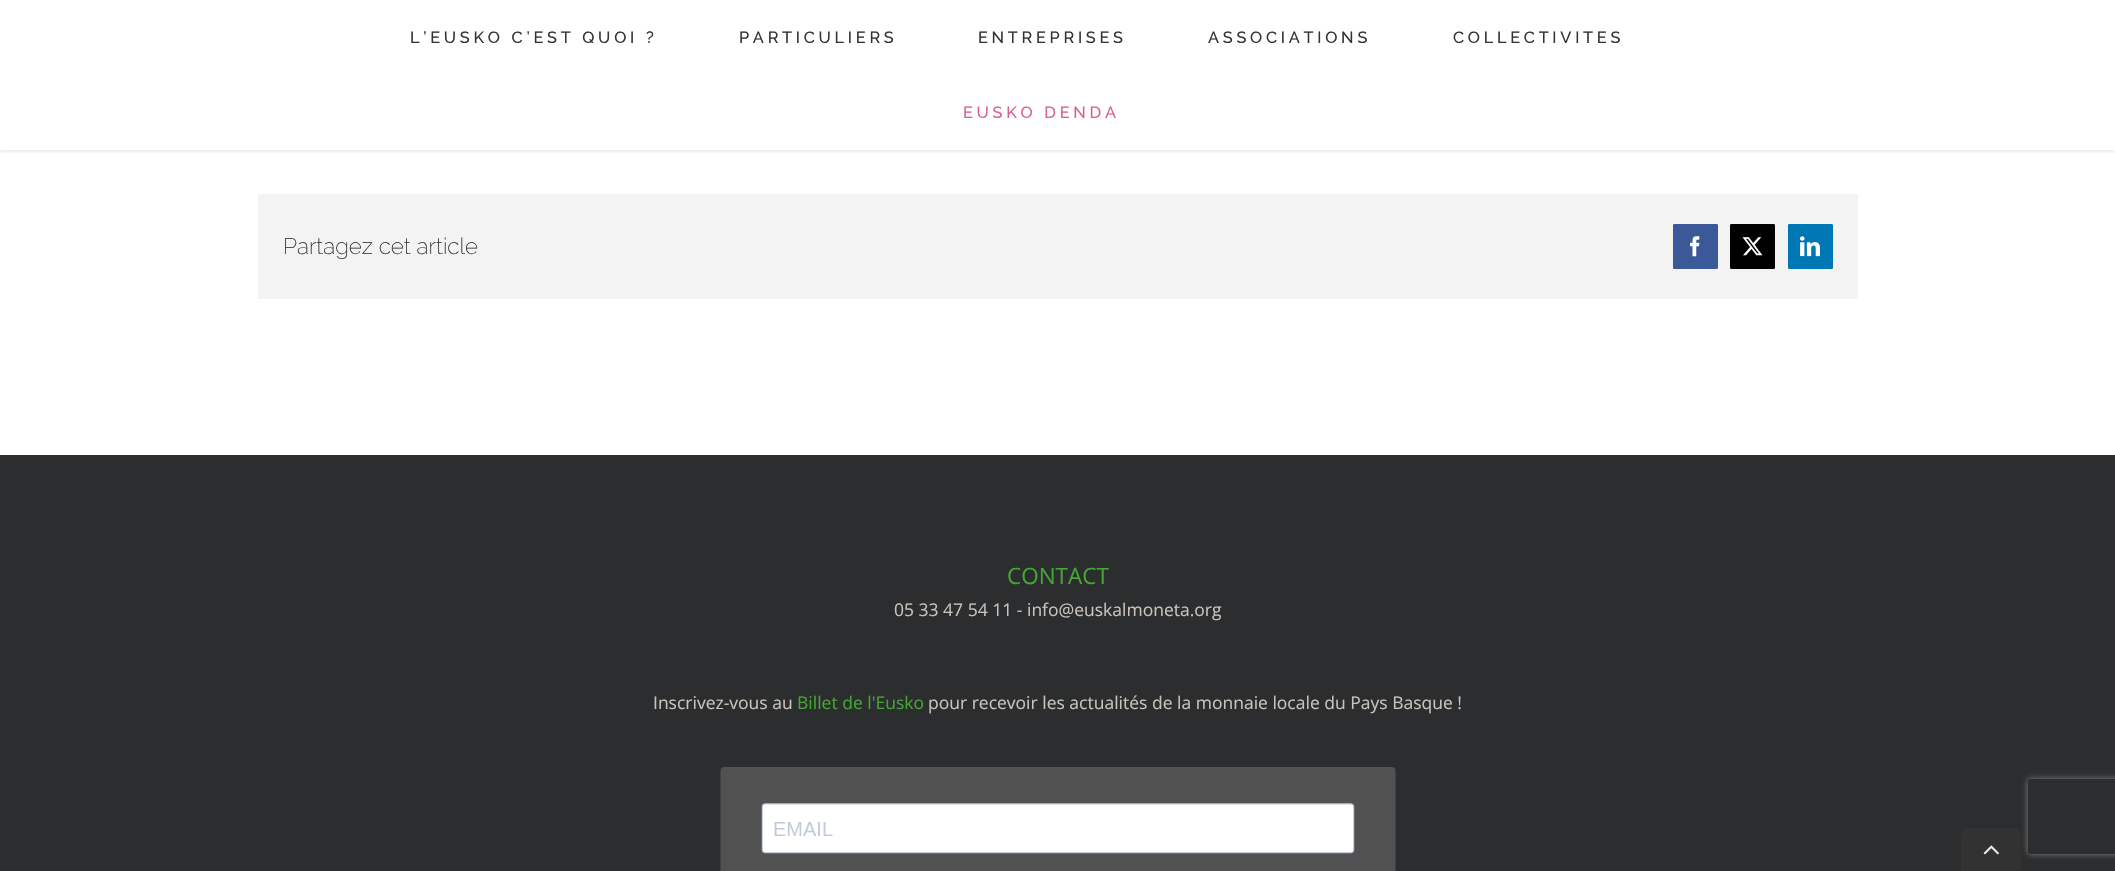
static SkFont makeFont(const char* family, int weight, float size, bool italic = false) {
  SkFontStyle style(weight, SkFontStyle::kNormal_Width,
    italic ? SkFontStyle::kItalic_Slant : SkFontStyle::kUpright_Slant);
  SkFont result(fontMgr->matchFamilyStyle(family, style), size);
  result.setSubpixel(true);
  return result;
}

static void text(SkCanvas* c, const char* s, float x, float y, const SkFont& font, SkColor color) {
  SkPaint ink(SkColor4f::FromColor(color));
  ink.setAntiAlias(true);
  c->drawString(s, x, y, font, ink);
}

static void spacedText(SkCanvas* c, const char* s, float x, float y, const SkFont& font, const SkPaint& ink, float letter, float word) {
  std::vector<SkGlyphID> glyphs(font.countText(s, strlen(s), SkTextEncoding::kUTF8));
  std::vector<float> xs(glyphs.size());
  font.textToGlyphs(s, strlen(s), SkTextEncoding::kUTF8, glyphs);
  font.getXPos(glyphs, xs, x);
  float extra = 0;
  for (size_t i = 0; i < glyphs.size(); i++) {
    xs[i] += extra;
    extra += letter + word * (glyphs[i] == font.unicharToGlyph(' '));
  }
  c->drawTextBlob(SkTextBlob::MakeFromPosHGlyphs(glyphs, xs, y, font), 0, 0, ink);
}

static void box(SkCanvas* c, float l, float t, float r, float b, SkColor color) {
  SkPaint ink(SkColor4f::FromColor(color));
  ink.setAntiAlias(true);
  c->drawRect(SkRect::MakeLTRB(l, t, r, b), ink);
}

static void picture(SkCanvas* c, const char* path, float l, float t, float r, float b) {
  auto image = SkImages::DeferredFromEncodedData(SkData::MakeFromFileName(path));
  c->drawImageRect(image, SkRect::MakeLTRB(l, t, r, b), SkSamplingOptions());
}

void draw(SkCanvas* c) {
  SkPaint paint;
  paint.setAntiAlias(true);
  c->clear(0xffffffff);
  c->save();
  c->clipRect(SkRect::MakeLTRB(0, 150, 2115, 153));
  paint.setColor(0x1f000000);
  paint.setMaskFilter(SkMaskFilter::MakeBlur(kNormal_SkBlurStyle, 2));
  c->drawRect(SkRect::MakeLTRB(0, 1, 2115, 151), paint);
  paint.setMaskFilter(nullptr);
  c->restore();
  SkFont face1 = makeFont("Raleway", 500, 16.25f);
  paint.setColor(0xff333333);
  spacedText(c, "L’EUSKO C’EST QUOI ?", 410, 43, face1, paint, 3.75f, 0);
  spacedText(c, "PARTICULIERS", 739, 43, face1, paint, 3.75f, 0);
  spacedText(c, "ENTREPRISES", 978, 43, face1, paint, 3.75f, 0);
  spacedText(c, "ASSOCIATIONS", 1208, 43, face1, paint, 3.75f, 0);
  spacedText(c, "COLLECTIVITES", 1453, 43, face1, paint, 3.75f, 0);
  paint.setColor(0xffdc5d95);
  spacedText(c, "EUSKO DENDA", 963, 118, face1, paint, 3.75f, 0);
  box(c, 258, 194, 1858, 299, 0xfff3f3f3);
  SkFont face2 = makeFont("Raleway", 200, 22.5f);
  text(c, "Partagez cet article", 283, 254, face2, 0xff333333);
  paint.setColor(0xff3b5998);
  c->drawRoundRect(SkRect::MakeLTRB(1673.5f, 224.5f, 1717.5f, 268.5f), 0.5f, 0.5f, paint);
  paint.setStyle(SkPaint::kStroke_Style);
  paint.setStrokeWidth(1);
  c->drawRoundRect(SkRect::MakeLTRB(1673.5f, 224.5f, 1717.5f, 268.5f), 0.5f, 0.5f, paint);
  picture(c, "img_01.png", 1690, 236, 1700, 257);
  paint.setStyle(SkPaint::kFill_Style);
  paint.setColor(0xff000000);
  c->drawRoundRect(SkRect::MakeLTRB(1730.5f, 224.5f, 1774.5f, 268.5f), 0.5f, 0.5f, paint);
  paint.setStyle(SkPaint::kStroke_Style);
  c->drawRoundRect(SkRect::MakeLTRB(1730.5f, 224.5f, 1774.5f, 268.5f), 0.5f, 0.5f, paint);
  picture(c, "img_02.png", 1742, 237, 1763, 256);
  paint.setStyle(SkPaint::kFill_Style);
  paint.setColor(0xff0077b5);
  c->drawRoundRect(SkRect::MakeLTRB(1788.5f, 224.5f, 1832.5f, 268.5f), 0.5f, 0.5f, paint);
  paint.setStyle(SkPaint::kStroke_Style);
  c->drawRoundRect(SkRect::MakeLTRB(1788.5f, 224.5f, 1832.5f, 268.5f), 0.5f, 0.5f, paint);
  picture(c, "img_03.png", 1800, 236, 1820, 257);
  box(c, 0, 455, 2115, 871, 0xff2c2d2f);
  SkFont face3 = makeFont("Open Sans", 400, 22.5f);
  text(c, "CONTACT", 1007, 584, face3, 0xff46a534);
  SkFont face4 = makeFont("Open Sans", 400, 17.5f);
  text(c, "05 33 47 54 11 - info@euskalmoneta.org", 894, 616, face4, 0xffc7c2bb);
  text(c, "Inscrivez-vous au", 653, 709, face4, 0xffc7c2bb);
  text(c, "Billet de l'Eusko", 797, 709, face4, 0xff46a534);
  text(c, "pour recevoir les actualités de la monnaie locale du Pays Basque !", 928, 709, face4, 0xffc7c2bb);
  picture(c, "img_04.png", 720, 767, 1396, 871);
  c->save();
  c->clipPath(SkPathBuilder(SkPathFillType::kEvenOdd).moveTo(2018, 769).lineTo(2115, 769).lineTo(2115, 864).lineTo(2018, 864).close().moveTo(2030.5f, 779).lineTo(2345.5f, 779).cubicTo(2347, 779, 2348, 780, 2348, 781.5f).lineTo(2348, 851.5f).cubicTo(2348, 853, 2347, 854, 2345.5f, 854).lineTo(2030.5f, 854).cubicTo(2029, 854, 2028, 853, 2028, 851.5f).lineTo(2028, 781.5f).cubicTo(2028, 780, 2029, 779, 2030.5f, 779).close().detach(), true);
  paint.setStyle(SkPaint::kFill_Style);
  paint.setColor(0xff808080);
  paint.setMaskFilter(SkMaskFilter::MakeBlur(kNormal_SkBlurStyle, 3));
  c->drawRoundRect(SkRect::MakeLTRB(2028, 779, 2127, 854), 2.5f, 2.5f, paint);
  paint.setMaskFilter(nullptr);
  c->restore();
  paint.setColor(0xff323233);
  c->drawPath(SkPathBuilder().moveTo(1969, 828).lineTo(2013, 828).cubicTo(2017.5f, 828, 2021, 831.5f, 2021, 836).lineTo(2021, 871).lineTo(1961, 871).lineTo(1961, 836).cubicTo(1961, 831.5f, 1964.5f, 828, 1969, 828).close().detach(), paint);
  picture(c, "img_05.png", 1983, 845, 1999, 855);
}
